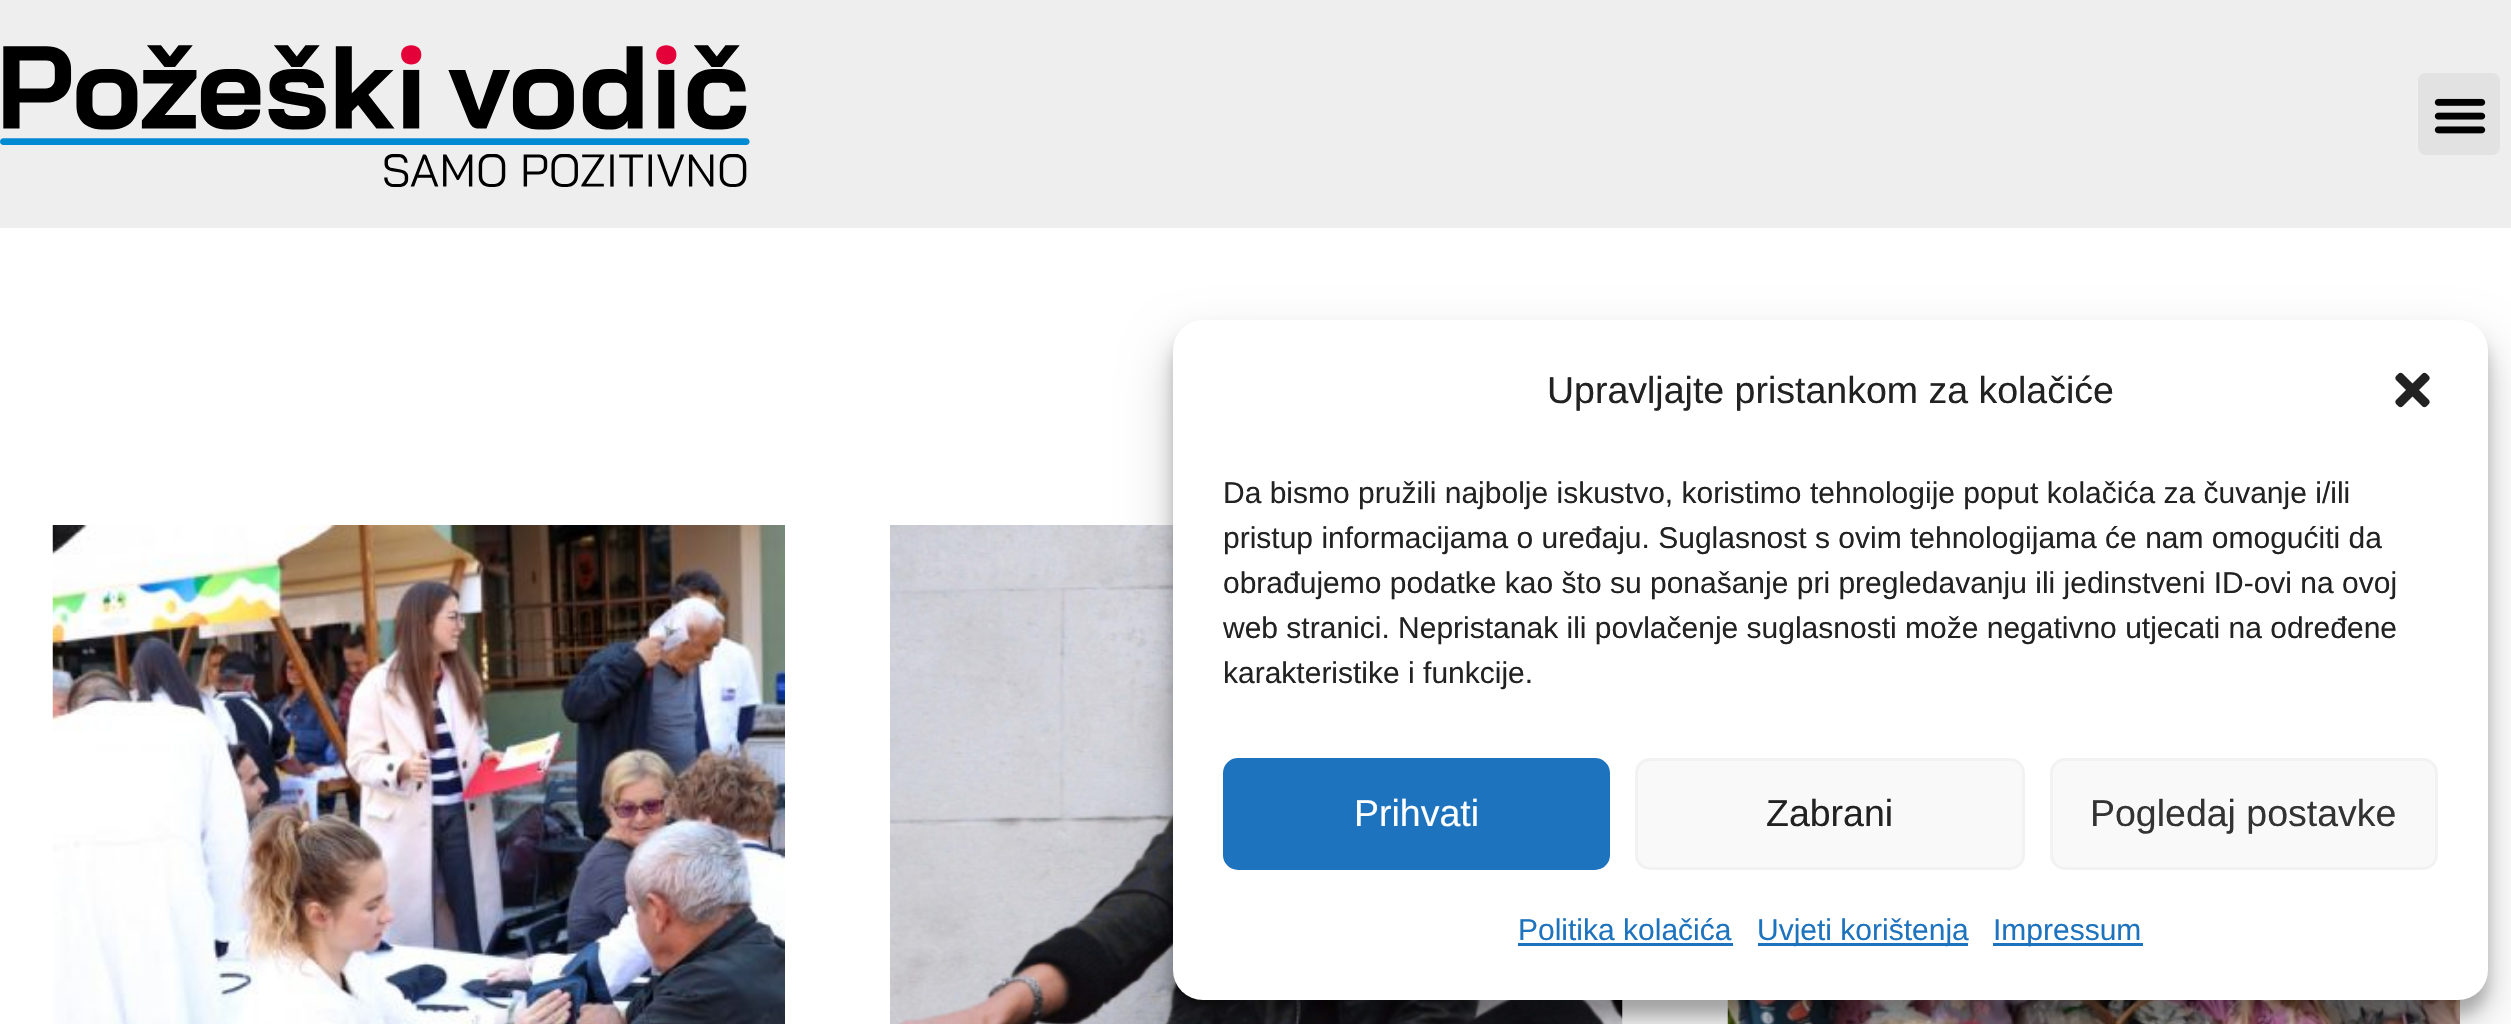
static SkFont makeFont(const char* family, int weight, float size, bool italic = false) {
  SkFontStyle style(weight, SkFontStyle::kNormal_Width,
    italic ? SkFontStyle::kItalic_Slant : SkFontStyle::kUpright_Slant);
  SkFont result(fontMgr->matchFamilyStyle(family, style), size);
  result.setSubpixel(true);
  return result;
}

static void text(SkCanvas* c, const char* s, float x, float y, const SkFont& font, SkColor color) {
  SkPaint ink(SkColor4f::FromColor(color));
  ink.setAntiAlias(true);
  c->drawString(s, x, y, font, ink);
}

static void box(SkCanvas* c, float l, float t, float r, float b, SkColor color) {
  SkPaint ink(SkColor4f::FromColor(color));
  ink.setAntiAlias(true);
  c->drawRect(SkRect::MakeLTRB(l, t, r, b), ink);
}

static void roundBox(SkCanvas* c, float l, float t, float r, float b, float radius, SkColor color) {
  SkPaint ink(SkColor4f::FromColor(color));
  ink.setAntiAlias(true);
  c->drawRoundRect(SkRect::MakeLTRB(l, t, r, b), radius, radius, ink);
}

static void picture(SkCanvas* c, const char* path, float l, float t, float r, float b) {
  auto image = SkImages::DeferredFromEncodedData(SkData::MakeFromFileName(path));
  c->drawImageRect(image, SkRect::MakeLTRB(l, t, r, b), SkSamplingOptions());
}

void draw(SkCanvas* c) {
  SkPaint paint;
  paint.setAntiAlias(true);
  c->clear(0xffffffff);
  box(c, 0, 0, 2511, 228, 0xffeeeeee);
  picture(c, "img_01.png", 0, 45, 750, 187);
  roundBox(c, 2418, 73, 2500, 155, 8, 0xffe2e2e2);
  picture(c, "img_02.png", 2434, 98, 2486, 134);
  picture(c, "img_03.png", 52, 525, 785, 1024);
  picture(c, "img_04.png", 890, 525, 1623, 1024);
  picture(c, "img_05.png", 1727, 999, 2460, 1024);
  paint.setColor(0x3b000000);
  paint.setMaskFilter(SkMaskFilter::MakeBlur(kNormal_SkBlurStyle, 7.5f));
  c->drawRoundRect(SkRect::MakeLTRB(1173, 335, 2488, 1015), 30, 30, paint);
  paint.setMaskFilter(nullptr);
  paint.setColor(0x30000000);
  paint.setMaskFilter(SkMaskFilter::MakeBlur(kNormal_SkBlurStyle, 25));
  c->drawRoundRect(SkRect::MakeLTRB(1173, 345, 2488, 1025), 30, 30, paint);
  paint.setMaskFilter(nullptr);
  roundBox(c, 1173, 320, 2488, 1000, 30, 0xffffffff);
  SkFont face1 = makeFont("Liberation Sans", 400, 37.5f);
  text(c, "Upravljajte pristankom za kolačiće", 1547, 403, face1, 0xff222222);
  picture(c, "img_06.png", 2395, 372, 2430, 408);
  SkFont face2 = makeFont("Liberation Sans", 400, 30);
  text(c, "Da bismo pružili najbolje iskustvo, koristimo tehnologije poput kolačića za čuvanje i/ili", 1223, 503, face2, 0xff222222);
  text(c, "pristup informacijama o uređaju. Suglasnost s ovim tehnologijama će nam omogućiti da", 1223, 548, face2, 0xff222222);
  text(c, "obrađujemo podatke kao što su ponašanje pri pregledavanju ili jedinstveni ID-ovi na ovoj", 1223, 593, face2, 0xff222222);
  text(c, "web stranici. Nepristanak ili povlačenje suglasnosti može negativno utjecati na određene", 1223, 638, face2, 0xff222222);
  text(c, "karakteristike i funkcije.", 1223, 683, face2, 0xff222222);
  paint.setColor(0xff1e73be);
  c->drawRoundRect(SkRect::MakeLTRB(1224.5f, 759.5f, 1608.5f, 868.5f), 13.5f, 13.5f, paint);
  paint.setStyle(SkPaint::kStroke_Style);
  paint.setStrokeWidth(3);
  c->drawRoundRect(SkRect::MakeLTRB(1224.5f, 759.5f, 1608.5f, 868.5f), 13.5f, 13.5f, paint);
  text(c, "Prihvati", 1354, 826, face1, 0xffffffff);
  paint.setStyle(SkPaint::kFill_Style);
  paint.setColor(0xfff9f9f9);
  c->drawRoundRect(SkRect::MakeLTRB(1636.5f, 759.5f, 2023.5f, 868.5f), 13.5f, 13.5f, paint);
  paint.setStyle(SkPaint::kStroke_Style);
  paint.setColor(0xfff2f2f2);
  c->drawRoundRect(SkRect::MakeLTRB(1636.5f, 759.5f, 2023.5f, 868.5f), 13.5f, 13.5f, paint);
  text(c, "Zabrani", 1766, 826, face1, 0xff222222);
  paint.setStyle(SkPaint::kFill_Style);
  paint.setColor(0xfff9f9f9);
  c->drawRoundRect(SkRect::MakeLTRB(2051.5f, 759.5f, 2436.5f, 868.5f), 13.5f, 13.5f, paint);
  paint.setStyle(SkPaint::kStroke_Style);
  paint.setColor(0xfff2f2f2);
  c->drawRoundRect(SkRect::MakeLTRB(2051.5f, 759.5f, 2436.5f, 868.5f), 13.5f, 13.5f, paint);
  text(c, "Pogledaj postavke", 2090, 826, face1, 0xff333333);
  text(c, "Politika kolačića", 1518, 940, face2, 0xff1e73be);
  box(c, 1518, 943, 1733, 946, 0xff1e73be);
  box(c, 1758, 943, 1968, 946, 0xff1e73be);
  text(c, "Uvjeti korištenja", 1757, 940, face2, 0xff1e73be);
  box(c, 1993, 943, 2143, 946, 0xff1e73be);
  text(c, "Impressum", 1993, 940, face2, 0xff1e73be);
}
